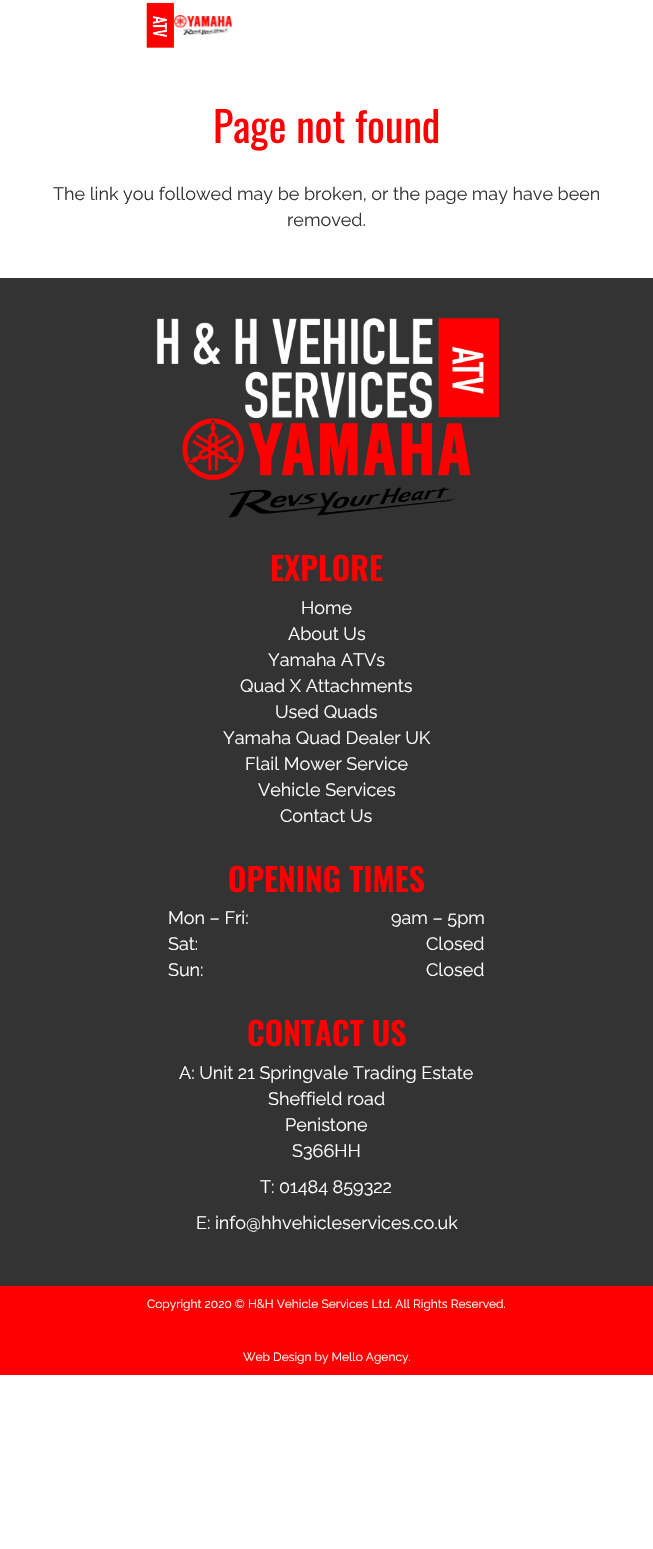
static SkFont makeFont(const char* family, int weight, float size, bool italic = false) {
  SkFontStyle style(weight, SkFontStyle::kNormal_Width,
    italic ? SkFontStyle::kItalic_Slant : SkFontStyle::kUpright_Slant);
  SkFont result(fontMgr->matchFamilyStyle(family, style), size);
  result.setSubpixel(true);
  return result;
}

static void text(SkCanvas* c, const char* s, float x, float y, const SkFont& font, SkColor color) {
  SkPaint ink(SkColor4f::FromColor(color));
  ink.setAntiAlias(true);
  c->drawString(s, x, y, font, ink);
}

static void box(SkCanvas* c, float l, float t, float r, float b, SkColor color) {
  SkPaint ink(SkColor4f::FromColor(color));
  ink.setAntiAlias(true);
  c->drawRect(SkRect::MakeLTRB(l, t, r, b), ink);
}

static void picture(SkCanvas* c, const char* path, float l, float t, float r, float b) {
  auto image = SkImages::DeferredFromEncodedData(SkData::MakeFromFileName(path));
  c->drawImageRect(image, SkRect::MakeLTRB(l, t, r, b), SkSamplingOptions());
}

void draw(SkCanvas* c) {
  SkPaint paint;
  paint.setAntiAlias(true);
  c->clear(0xffffffff);
  picture(c, "img_01.png", 146, 2, 174, 48);
  picture(c, "img_02.png", 174, 15, 232, 35);
  SkFont face1 = makeFont("Oswald", 400, 42);
  text(c, "Page not found", 213, 143, face1, 0xfffe0000);
  SkFont face2 = makeFont("Raleway", 400, 18);
  text(c, "The link you followed may be broken, or the page may have been", 53, 200, face2, 0xff333333);
  text(c, "removed.", 287, 226, face2, 0xff333333);
  box(c, 0, 278, 653, 1286, 0xff333333);
  picture(c, "img_03.png", 156, 318, 499, 418);
  picture(c, "img_04.png", 182, 418, 471, 518);
  SkFont face3 = makeFont("Oswald", 600, 32);
  text(c, "EXPLORE", 270, 581, face3, 0xfffe0000);
  text(c, "Home", 301, 614, face2, 0xffffffff);
  text(c, "About Us", 288, 640, face2, 0xffffffff);
  text(c, "Yamaha ATVs", 268, 666, face2, 0xffffffff);
  text(c, "Quad X Attachments", 240, 692, face2, 0xffffffff);
  text(c, "Used Quads", 275, 718, face2, 0xffffffff);
  text(c, "Yamaha Quad Dealer UK", 223, 744, face2, 0xffffffff);
  text(c, "Flail Mower Service", 245, 770, face2, 0xffffffff);
  text(c, "Vehicle Services", 258, 796, face2, 0xffffffff);
  text(c, "Contact Us", 280, 822, face2, 0xffffffff);
  text(c, "OPENING TIMES", 228, 892, face3, 0xfffe0000);
  text(c, "Mon – Fri:", 168, 924, face2, 0xffffffff);
  text(c, "9am – 5pm", 391, 924, face2, 0xffffffff);
  text(c, "Sat:", 168, 950, face2, 0xffffffff);
  text(c, "Closed", 426, 950, face2, 0xffffffff);
  text(c, "Sun:", 168, 976, face2, 0xffffffff);
  text(c, "Closed", 426, 976, face2, 0xffffffff);
  text(c, "CONTACT US", 247, 1046, face3, 0xfffe0000);
  text(c, "A: Unit 21 Springvale Trading Estate", 179, 1079, face2, 0xffffffff);
  text(c, "Sheffield road", 268, 1105, face2, 0xffffffff);
  text(c, "Penistone", 285, 1131, face2, 0xffffffff);
  text(c, "S366HH", 292, 1157, face2, 0xffffffff);
  text(c, "T: 01484 859322", 260, 1193, face2, 0xffffffff);
  text(c, "E: info@hhvehicleservices.co.uk", 196, 1229, face2, 0xffffffff);
  box(c, 0, 1286, 653, 1375, 0xfffe0000);
  SkFont face4 = makeFont("Raleway", 400, 12);
  text(c, "Copyright 2020 © H&H Vehicle Services Ltd. All Rights Reserved.", 147, 1308, face4, 0xffffffff);
  text(c, "Web Design by Mello Agency.", 243, 1361, face4, 0xffffffff);
}
